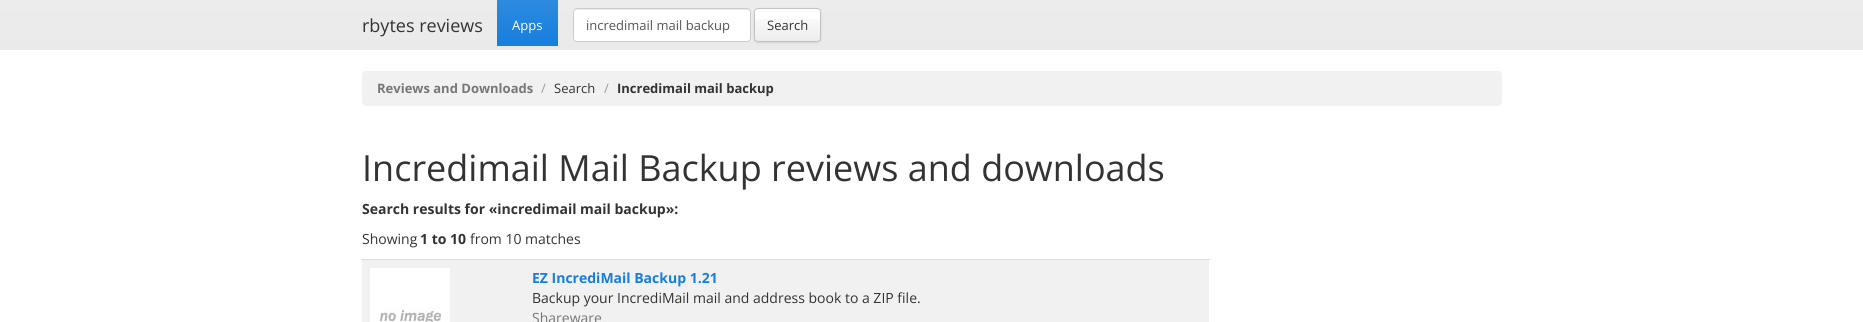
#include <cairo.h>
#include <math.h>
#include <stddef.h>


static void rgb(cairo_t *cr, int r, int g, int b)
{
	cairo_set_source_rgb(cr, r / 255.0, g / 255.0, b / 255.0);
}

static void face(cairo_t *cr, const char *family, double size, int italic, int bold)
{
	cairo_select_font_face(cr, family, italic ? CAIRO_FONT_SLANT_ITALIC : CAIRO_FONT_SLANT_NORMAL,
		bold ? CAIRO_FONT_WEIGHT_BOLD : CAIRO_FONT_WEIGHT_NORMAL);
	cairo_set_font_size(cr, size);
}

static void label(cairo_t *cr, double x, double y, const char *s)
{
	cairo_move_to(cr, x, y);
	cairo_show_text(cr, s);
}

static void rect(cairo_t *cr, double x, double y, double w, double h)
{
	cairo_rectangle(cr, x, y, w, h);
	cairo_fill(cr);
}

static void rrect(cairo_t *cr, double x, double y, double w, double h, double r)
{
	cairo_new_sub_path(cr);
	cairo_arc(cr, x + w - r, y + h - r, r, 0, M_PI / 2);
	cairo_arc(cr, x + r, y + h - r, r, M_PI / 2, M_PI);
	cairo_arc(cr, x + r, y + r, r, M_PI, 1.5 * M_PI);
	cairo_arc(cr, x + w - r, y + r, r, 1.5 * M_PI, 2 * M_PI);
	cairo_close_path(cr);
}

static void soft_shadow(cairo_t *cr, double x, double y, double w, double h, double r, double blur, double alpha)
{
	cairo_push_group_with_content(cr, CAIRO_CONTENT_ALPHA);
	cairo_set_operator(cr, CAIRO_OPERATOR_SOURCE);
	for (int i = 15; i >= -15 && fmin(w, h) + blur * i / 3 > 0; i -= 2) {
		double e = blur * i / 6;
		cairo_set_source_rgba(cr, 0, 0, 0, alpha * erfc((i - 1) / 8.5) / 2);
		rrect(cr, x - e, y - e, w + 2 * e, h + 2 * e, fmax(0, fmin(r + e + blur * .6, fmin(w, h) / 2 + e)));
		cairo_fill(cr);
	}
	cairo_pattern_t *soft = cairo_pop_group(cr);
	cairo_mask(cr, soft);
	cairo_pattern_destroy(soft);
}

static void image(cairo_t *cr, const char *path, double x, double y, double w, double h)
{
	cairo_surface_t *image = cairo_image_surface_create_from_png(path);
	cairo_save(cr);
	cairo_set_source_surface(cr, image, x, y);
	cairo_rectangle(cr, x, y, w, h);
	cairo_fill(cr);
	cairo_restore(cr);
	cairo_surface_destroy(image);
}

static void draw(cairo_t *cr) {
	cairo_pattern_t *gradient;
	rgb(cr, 255, 255, 255);
	cairo_paint(cr);
	gradient = cairo_pattern_create_linear(932, 0, 932, 50);
	cairo_pattern_add_color_stop_rgba(gradient, 0, 0.925, 0.925, 0.925, 1);
	cairo_pattern_add_color_stop_rgba(gradient, 1, 0.918, 0.918, 0.918, 1);
	cairo_set_source(cr, gradient);
	cairo_pattern_destroy(gradient);
	rect(cr, 0, 0, 1863, 50);
	face(cr, "Open Sans", 18, 0, 0);
	rgb(cr, 51, 51, 51);
	label(cr, 362, 32, "rbytes reviews");
	gradient = cairo_pattern_create_linear(528, 0, 528, 46);
	cairo_pattern_add_color_stop_rgba(gradient, 0, 0.176, 0.545, 0.878, 1);
	cairo_pattern_add_color_stop_rgba(gradient, 1, 0.086, 0.494, 0.867, 1);
	cairo_set_source(cr, gradient);
	cairo_pattern_destroy(gradient);
	rect(cr, 497, 0, 61, 46);
	face(cr, "Open Sans", 13, 0, 0);
	rgb(cr, 255, 255, 255);
	label(cr, 512, 30, "Apps");
	rrect(cr, 573, 8, 178, 34, 4);
	cairo_fill(cr);
	rgb(cr, 236, 236, 236);
	cairo_new_path(cr);
	cairo_move_to(cr, 577, 10);
	cairo_line_to(cr, 747, 10);
	cairo_curve_to(cr, 749, 10, 750, 11, 750, 13);
	cairo_line_to(cr, 750, 12);
	cairo_curve_to(cr, 750, 10, 749, 9, 747, 9);
	cairo_line_to(cr, 577, 9);
	cairo_curve_to(cr, 575, 9, 574, 10, 574, 12);
	cairo_line_to(cr, 574, 13);
	cairo_curve_to(cr, 574, 11, 575, 10, 577, 10);
	cairo_close_path(cr);
	cairo_fill(cr);
	rrect(cr, 573.5, 8.5, 177, 33, 3.5);
	rgb(cr, 204, 204, 204);
	cairo_set_line_width(cr, 1);
	cairo_stroke(cr);
	rgb(cr, 85, 85, 85);
	label(cr, 586, 30, "incredimail mail backup");
	rgb(cr, 0, 0, 0);
	soft_shadow(cr, 754, 9, 67, 34, 4, 1, 0.1);
	rgb(cr, 255, 255, 255);
	rrect(cr, 754, 8, 67, 34, 4);
	cairo_fill(cr);
	gradient = cairo_pattern_create_linear(788, 9, 788, 41);
	cairo_pattern_add_color_stop_rgba(gradient, 0, 0, 0, 0, 0);
	cairo_pattern_add_color_stop_rgba(gradient, 1, 0, 0, 0, 0.07);
	cairo_set_source(cr, gradient);
	cairo_pattern_destroy(gradient);
	rect(cr, 754, 19, 67, 22);
	rrect(cr, 754.5, 8.5, 66, 33, 3.5);
	rgb(cr, 194, 194, 194);
	cairo_stroke(cr);
	rgb(cr, 51, 51, 51);
	label(cr, 767, 30, "Search");
	rgb(cr, 241, 241, 241);
	rrect(cr, 362, 71, 1140, 35, 4);
	cairo_fill(cr);
	face(cr, "Open Sans", 13, 0, 1);
	rgb(cr, 119, 119, 119);
	label(cr, 377, 93, "Reviews and Downloads");
	face(cr, "Open Sans", 13, 0, 0);
	rgb(cr, 153, 153, 153);
	label(cr, 541, 93, "/");
	rgb(cr, 51, 51, 51);
	label(cr, 554, 93, "Search");
	rgb(cr, 153, 153, 153);
	label(cr, 604, 93, "/");
	face(cr, "Open Sans", 13, 0, 1);
	rgb(cr, 51, 51, 51);
	label(cr, 617, 93, "Incredimail mail backup");
	face(cr, "Open Sans", 36, 0, 0);
	label(cr, 362, 181, "Incredimail Mail Backup reviews and downloads");
	face(cr, "Open Sans", 14, 0, 1);
	label(cr, 362, 214, "Search results for «incredimail mail backup»:");
	face(cr, "Open Sans", 14, 0, 0);
	label(cr, 362, 244, "Showing");
	face(cr, "Open Sans", 14, 0, 1);
	label(cr, 420, 244, "1 to 10");
	face(cr, "Open Sans", 14, 0, 0);
	label(cr, 470, 244, "from 10 matches");
	rgb(cr, 241, 241, 241);
	rect(cr, 362, 260, 847, 62);
	image(cr, "image0.png", 370, 268, 80, 54);
	rgb(cr, 221, 221, 221);
	rect(cr, 361, 259, 849, 1);
	face(cr, "Open Sans", 14, 0, 1);
	rgb(cr, 22, 126, 221);
	label(cr, 532, 283, "EZ IncrediMail Backup 1.21");
	face(cr, "Open Sans", 14, 0, 0);
	rgb(cr, 51, 51, 51);
	label(cr, 532, 303, "Backup your IncrediMail mail and address book to a ZIP file.");
	rgb(cr, 119, 119, 119);
	label(cr, 532, 323, "Shareware");
}

int main(void) {
	cairo_surface_t *surface = cairo_image_surface_create(CAIRO_FORMAT_RGB24, 1863, 322);
	cairo_t *cr = cairo_create(surface);
	cairo_font_options_t *options = cairo_font_options_create();
	cairo_font_options_set_hint_metrics(options, CAIRO_HINT_METRICS_OFF);
	cairo_font_options_set_hint_style(options, CAIRO_HINT_STYLE_NONE);
	cairo_set_font_options(cr, options);
	cairo_set_miter_limit(cr, 4);
	draw(cr);
	cairo_surface_write_to_png(surface, "render.png");
	cairo_font_options_destroy(options);
	cairo_destroy(cr);
	cairo_surface_destroy(surface);
	return 0;
}
